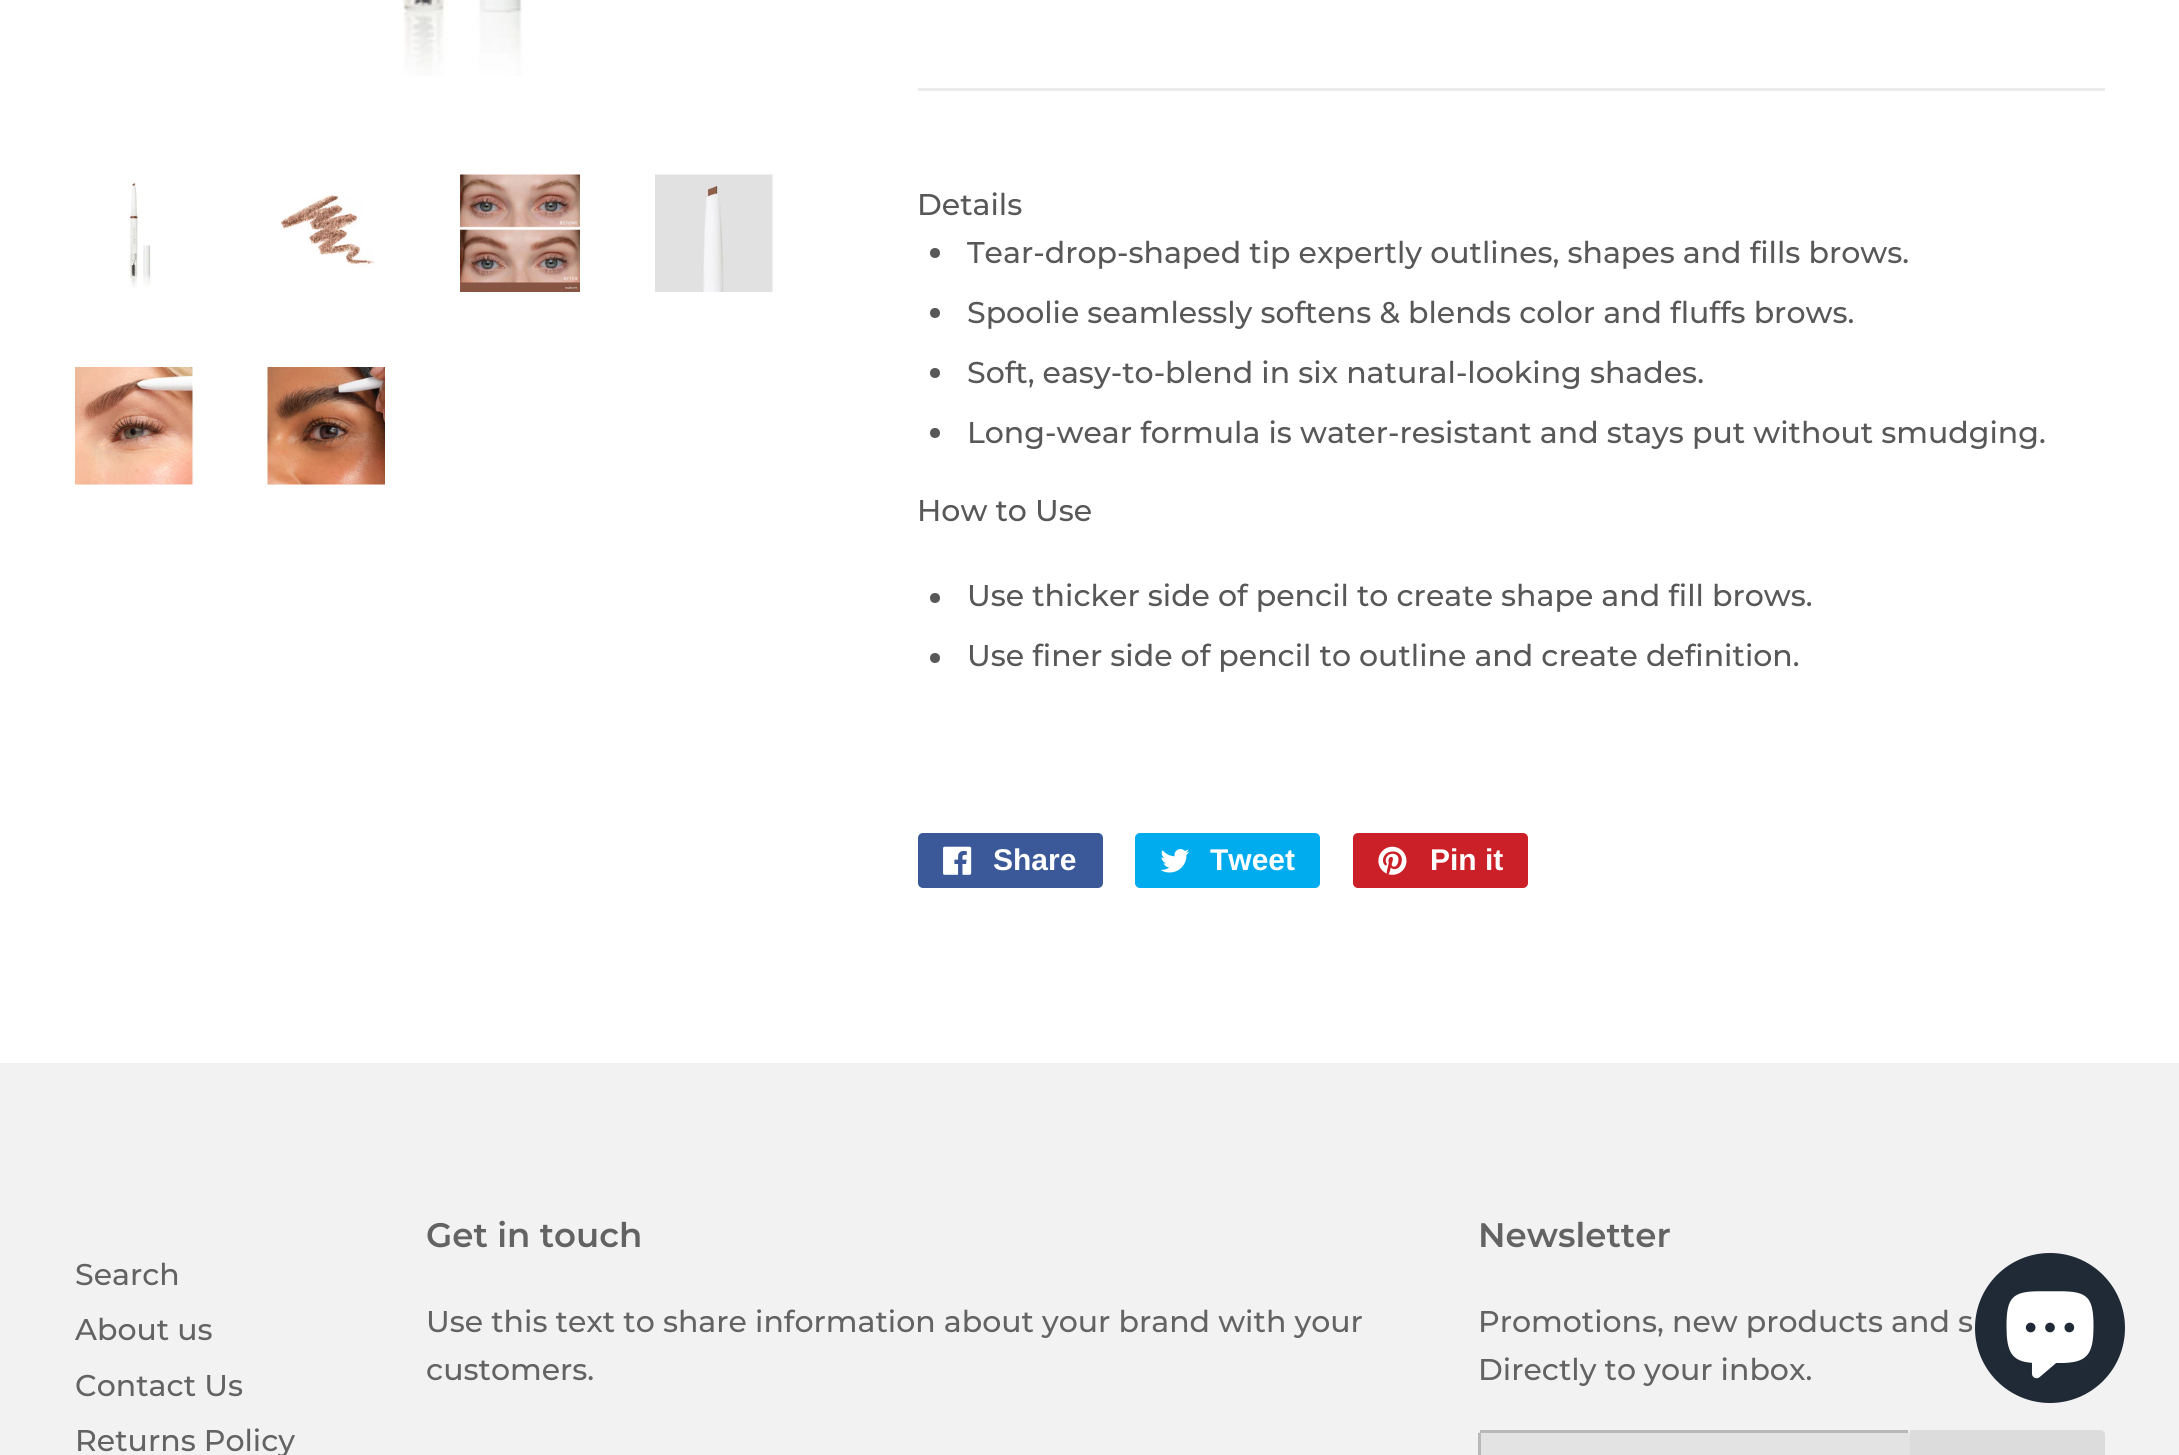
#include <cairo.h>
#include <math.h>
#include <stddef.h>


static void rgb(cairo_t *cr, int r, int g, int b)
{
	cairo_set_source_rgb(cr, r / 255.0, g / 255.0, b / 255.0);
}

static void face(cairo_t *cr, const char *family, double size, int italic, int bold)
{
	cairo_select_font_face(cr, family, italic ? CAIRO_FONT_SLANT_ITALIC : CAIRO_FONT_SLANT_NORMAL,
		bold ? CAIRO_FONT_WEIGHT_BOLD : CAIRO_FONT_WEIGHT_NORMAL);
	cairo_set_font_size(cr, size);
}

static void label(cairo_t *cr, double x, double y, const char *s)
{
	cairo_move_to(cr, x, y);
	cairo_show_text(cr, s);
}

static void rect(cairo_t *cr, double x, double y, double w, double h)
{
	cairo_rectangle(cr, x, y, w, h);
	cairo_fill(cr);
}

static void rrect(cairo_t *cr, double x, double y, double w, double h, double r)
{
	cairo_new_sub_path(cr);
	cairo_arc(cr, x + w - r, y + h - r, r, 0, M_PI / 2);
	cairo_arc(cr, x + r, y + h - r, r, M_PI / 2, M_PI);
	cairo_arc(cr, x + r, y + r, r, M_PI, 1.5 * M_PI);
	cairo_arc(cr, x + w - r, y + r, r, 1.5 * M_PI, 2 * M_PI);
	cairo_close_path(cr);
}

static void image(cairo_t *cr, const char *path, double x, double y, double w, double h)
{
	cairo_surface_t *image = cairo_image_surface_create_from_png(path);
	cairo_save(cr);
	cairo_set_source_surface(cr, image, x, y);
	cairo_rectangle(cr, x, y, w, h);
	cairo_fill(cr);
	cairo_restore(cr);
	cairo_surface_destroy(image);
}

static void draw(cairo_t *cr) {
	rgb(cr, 255, 255, 255);
	cairo_paint(cr);
	image(cr, "image0.png", 402, 0, 121, 76);
	image(cr, "image1.png", 128, 183, 23, 105);
	image(cr, "image2.png", 280, 195, 94, 73);
	image(cr, "image3.png", 460, 174, 120, 118);
	image(cr, "image4.png", 655, 174, 118, 118);
	image(cr, "image5.png", 75, 367, 118, 118);
	image(cr, "image6.png", 267, 367, 118, 118);
	rgb(cr, 236, 236, 236);
	rect(cr, 918, 88, 1187, 3);
	face(cr, "Montserrat Medium", 30, 0, 0);
	rgb(cr, 88, 88, 88);
	label(cr, 917, 215, "Details");
	cairo_new_path(cr);
	cairo_arc(cr, 935, 253, 5, 0, 2 * M_PI);
	cairo_fill(cr);
	label(cr, 967, 263, "Tear-drop-shaped tip expertly outlines, shapes and fills brows.");
	cairo_new_path(cr);
	cairo_arc(cr, 935, 313, 5, 0, 2 * M_PI);
	cairo_fill(cr);
	label(cr, 967, 323, "Spoolie seamlessly softens & blends color and fluffs brows.");
	cairo_new_path(cr);
	cairo_arc(cr, 935, 373, 5, 0, 2 * M_PI);
	cairo_fill(cr);
	label(cr, 967, 383, "Soft, easy-to-blend in six natural-looking shades.");
	cairo_new_path(cr);
	cairo_arc(cr, 935, 433, 5, 0, 2 * M_PI);
	cairo_fill(cr);
	label(cr, 967, 443, "Long-wear formula is water-resistant and stays put without smudging.");
	label(cr, 917, 521, "How to Use");
	cairo_new_path(cr);
	cairo_arc(cr, 935, 598, 5, 0, 2 * M_PI);
	cairo_fill(cr);
	label(cr, 967, 606, "Use thicker side of pencil to create shape and fill brows.");
	cairo_new_path(cr);
	cairo_arc(cr, 935, 658, 5, 0, 2 * M_PI);
	cairo_fill(cr);
	label(cr, 967, 666, "Use finer side of pencil to outline and create definition.");
	rgb(cr, 59, 89, 152);
	rrect(cr, 918, 833, 185, 55, 5);
	cairo_fill(cr);
	image(cr, "image7.png", 943, 846, 29, 29);
	face(cr, "Liberation Sans", 30, 0, 1);
	rgb(cr, 255, 255, 255);
	label(cr, 993, 870, "Share");
	rgb(cr, 0, 172, 237);
	rrect(cr, 1135, 833, 185, 55, 5);
	cairo_fill(cr);
	image(cr, "image8.png", 1160, 849, 30, 24);
	rgb(cr, 255, 255, 255);
	label(cr, 1210, 870, "Tweet");
	rgb(cr, 203, 32, 39);
	rrect(cr, 1353, 833, 175, 55, 5);
	cairo_fill(cr);
	image(cr, "image9.png", 1378, 846, 29, 29);
	rgb(cr, 255, 255, 255);
	label(cr, 1430, 870, "Pin it");
	rgb(cr, 242, 242, 242);
	rect(cr, 0, 1063, 2179, 392);
	face(cr, "Montserrat Medium", 30, 0, 0);
	rgb(cr, 99, 99, 99);
	label(cr, 75, 1285, "Search");
	label(cr, 75, 1340, "About us");
	label(cr, 75, 1396, "Contact Us");
	label(cr, 75, 1451, "Returns Policy");
	face(cr, "Montserrat SemiBold", 34, 0, 0);
	label(cr, 426, 1247, "Get in touch");
	face(cr, "Montserrat Medium", 30, 0, 0);
	label(cr, 426, 1332, "Use this text to share information about your brand with your");
	label(cr, 426, 1380, "customers.");
	face(cr, "Montserrat SemiBold", 34, 0, 0);
	label(cr, 1478, 1247, "Newsletter");
	face(cr, "Montserrat Medium", 30, 0, 0);
	label(cr, 1478, 1332, "Promotions, new products and s");
	label(cr, 1478, 1380, "Directly to your inbox.");
	rgb(cr, 227, 227, 227);
	rrect(cr, 1478, 1430, 432, 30, 5);
	cairo_fill(cr);
	rgb(cr, 185, 185, 185);
	rect(cr, 1480, 1430, 428, 3);
	rect(cr, 1478, 1433, 3, 22);
	rgb(cr, 220, 220, 220);
	cairo_new_path(cr);
	cairo_move_to(cr, 1910, 1430);
	cairo_line_to(cr, 2100, 1430);
	cairo_curve_to(cr, 2103, 1430, 2105, 1432, 2105, 1435);
	cairo_line_to(cr, 2105, 1455);
	cairo_curve_to(cr, 2105, 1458, 2103, 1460, 2100, 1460);
	cairo_line_to(cr, 1910, 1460);
	cairo_close_path(cr);
	cairo_fill(cr);
	rgb(cr, 32, 42, 54);
	cairo_arc(cr, 2050, 1328, 75, 0, 2 * M_PI);
	cairo_fill(cr);
	image(cr, "image10.png", 2006, 1291, 88, 88);
}

int main(void) {
	cairo_surface_t *surface = cairo_image_surface_create(CAIRO_FORMAT_RGB24, 2179, 1455);
	cairo_t *cr = cairo_create(surface);
	cairo_font_options_t *options = cairo_font_options_create();
	cairo_font_options_set_hint_metrics(options, CAIRO_HINT_METRICS_OFF);
	cairo_font_options_set_hint_style(options, CAIRO_HINT_STYLE_NONE);
	cairo_set_font_options(cr, options);
	cairo_set_miter_limit(cr, 4);
	draw(cr);
	cairo_surface_write_to_png(surface, "render.png");
	cairo_font_options_destroy(options);
	cairo_destroy(cr);
	cairo_surface_destroy(surface);
	return 0;
}
